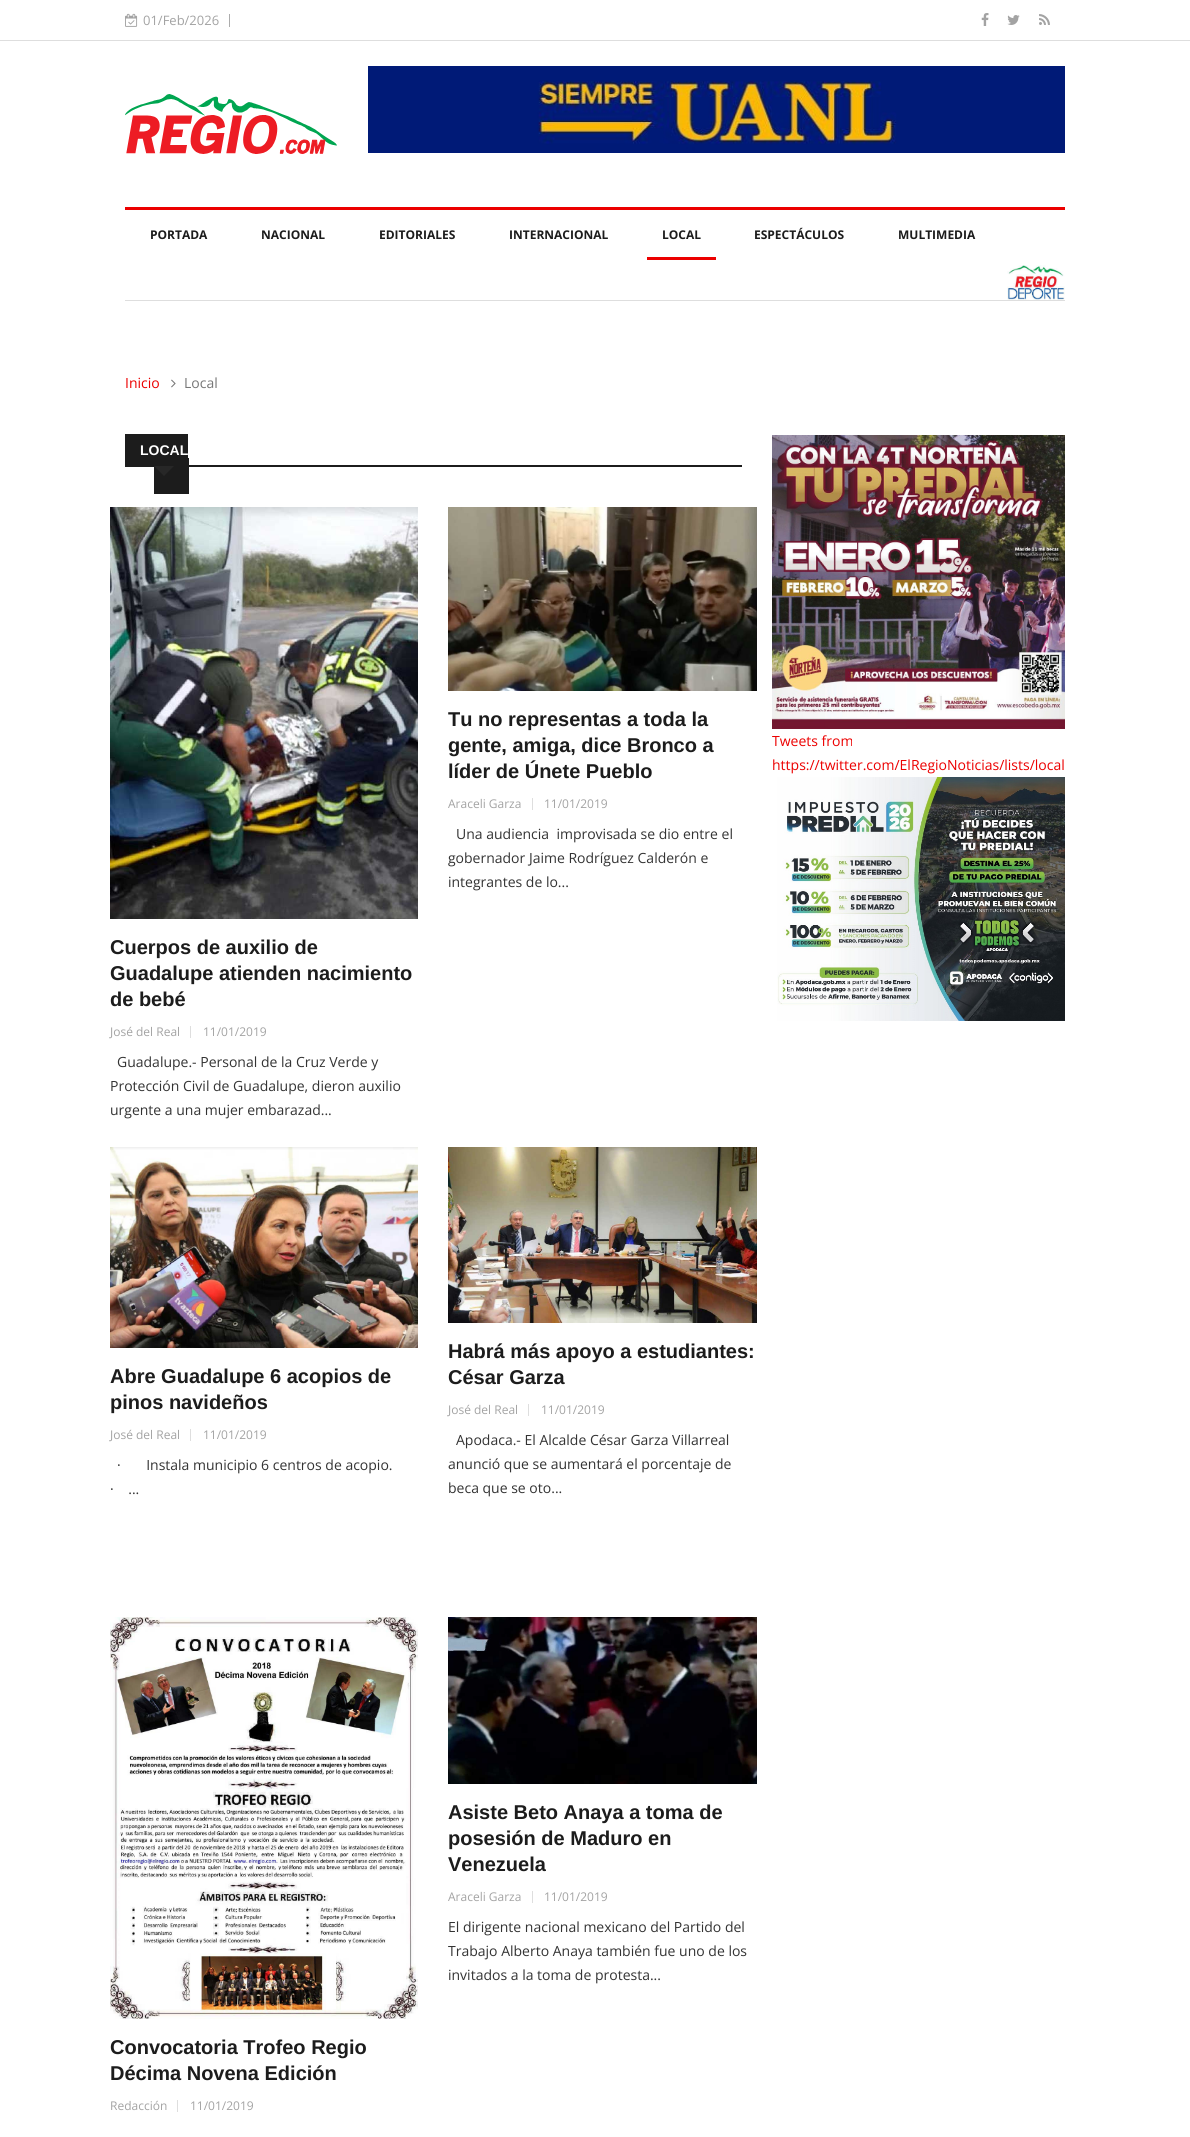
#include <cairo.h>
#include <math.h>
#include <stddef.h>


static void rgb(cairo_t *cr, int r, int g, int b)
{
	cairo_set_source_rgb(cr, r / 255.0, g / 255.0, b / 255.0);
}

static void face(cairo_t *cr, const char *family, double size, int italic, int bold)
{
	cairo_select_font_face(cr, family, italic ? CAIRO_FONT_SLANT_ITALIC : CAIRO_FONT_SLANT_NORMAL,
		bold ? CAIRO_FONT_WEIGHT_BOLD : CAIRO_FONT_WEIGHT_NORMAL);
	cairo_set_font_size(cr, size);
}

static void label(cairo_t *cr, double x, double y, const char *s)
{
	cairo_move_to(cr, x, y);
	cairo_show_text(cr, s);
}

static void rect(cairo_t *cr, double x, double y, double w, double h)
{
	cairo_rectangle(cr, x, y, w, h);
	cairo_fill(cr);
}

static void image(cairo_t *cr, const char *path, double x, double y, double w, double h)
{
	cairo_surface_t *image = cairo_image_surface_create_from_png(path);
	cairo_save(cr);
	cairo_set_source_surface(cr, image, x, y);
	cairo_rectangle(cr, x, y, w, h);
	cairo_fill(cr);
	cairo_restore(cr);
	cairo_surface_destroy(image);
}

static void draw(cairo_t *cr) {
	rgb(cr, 255, 255, 255);
	cairo_paint(cr);
	rgb(cr, 222, 222, 222);
	rect(cr, 0, 40, 1190, 1);
	rgb(cr, 172, 172, 172);
	rect(cr, 229, 14, 1, 13);
	image(cr, "image0.png", 125, 13, 13, 14);
	face(cr, "Open Sans", 13, 0, 0);
	rgb(cr, 163, 163, 163);
	label(cr, 143, 25, "01/Feb/2026");
	image(cr, "image1.png", 981, 13, 8, 13);
	image(cr, "image2.png", 1007, 15, 13, 10);
	image(cr, "image3.png", 1039, 14, 11, 11);
	image(cr, "image4.png", 125, 94, 212, 60);
	image(cr, "image5.png", 368, 66, 697, 87);
	rgb(cr, 236, 0, 0);
	rect(cr, 125, 207, 940, 3);
	rgb(cr, 222, 222, 222);
	rect(cr, 125, 300, 940, 1);
	face(cr, "Open Sans", 12, 0, 1);
	rgb(cr, 28, 28, 28);
	label(cr, 150, 239, "PORTADA");
	label(cr, 261, 239, "NACIONAL");
	label(cr, 379, 239, "EDITORIALES");
	label(cr, 509, 239, "INTERNACIONAL");
	label(cr, 662, 239, "LOCAL");
	rgb(cr, 236, 0, 0);
	rect(cr, 647, 257, 69, 3);
	rgb(cr, 28, 28, 28);
	label(cr, 754, 239, "ESPECTÁCULOS");
	label(cr, 898, 239, "MULTIMEDIA");
	image(cr, "image6.png", 1007, 265, 58, 35);
	face(cr, "Open Sans", 14, 0, 0);
	rgb(cr, 236, 0, 0);
	label(cr, 125, 388, "Inicio");
	image(cr, "image7.png", 171, 379, 5, 9);
	rgb(cr, 119, 119, 119);
	label(cr, 184, 388, "Local");
	rgb(cr, 28, 28, 28);
	rect(cr, 125, 465, 617, 2);
	rect(cr, 125, 434, 63, 31);
	rect(cr, 154, 458, 35, 36);
	face(cr, "Arimo", 14, 0, 1);
	rgb(cr, 255, 255, 255);
	label(cr, 140, 455, "LOCAL");
	rgb(cr, 39, 39, 39);
	cairo_new_path(cr);
	cairo_move_to(cr, 154, 466);
	cairo_line_to(cr, 174, 466);
	cairo_line_to(cr, 164, 476);
	cairo_close_path(cr);
	cairo_fill(cr);
	image(cr, "image8.png", 448, 507, 309, 184);
	face(cr, "Arimo", 20, 0, 1);
	rgb(cr, 28, 28, 28);
	label(cr, 448, 726, "Tu no representas a toda la");
	label(cr, 448, 752, "gente, amiga, dice Bronco a");
	label(cr, 448, 778, "líder de Únete Pueblo");
	rgb(cr, 222, 222, 222);
	rect(cr, 532, 798, 1, 12);
	face(cr, "Open Sans", 12, 0, 0);
	rgb(cr, 163, 163, 163);
	label(cr, 448, 808, "Araceli Garza");
	label(cr, 544, 808, "11/01/2019");
	face(cr, "Open Sans", 14, 0, 0);
	rgb(cr, 51, 51, 51);
	label(cr, 456, 839, "Una audiencia  improvisada se dio entre el");
	label(cr, 448, 863, "gobernador Jaime Rodríguez Calderón e");
	label(cr, 448, 887, "integrantes de lo...");
	image(cr, "image9.png", 110, 507, 308, 412);
	face(cr, "Arimo", 20, 0, 1);
	rgb(cr, 28, 28, 28);
	label(cr, 110, 954, "Cuerpos de auxilio de");
	label(cr, 110, 980, "Guadalupe atienden nacimiento");
	label(cr, 110, 1006, "de bebé");
	rgb(cr, 222, 222, 222);
	rect(cr, 190, 1026, 1, 12);
	face(cr, "Open Sans", 12, 0, 0);
	rgb(cr, 163, 163, 163);
	label(cr, 110, 1036, "José del Real");
	label(cr, 203, 1036, "11/01/2019");
	face(cr, "Open Sans", 14, 0, 0);
	rgb(cr, 51, 51, 51);
	label(cr, 117, 1067, "Guadalupe.- Personal de la Cruz Verde y");
	label(cr, 110, 1091, "Protección Civil de Guadalupe, dieron auxilio");
	label(cr, 110, 1115, "urgente a una mujer embarazad...");
	image(cr, "image10.png", 110, 1147, 308, 201);
	face(cr, "Arimo", 20, 0, 1);
	rgb(cr, 28, 28, 28);
	label(cr, 110, 1383, "Abre Guadalupe 6 acopios de");
	label(cr, 110, 1409, "pinos navideños");
	rgb(cr, 222, 222, 222);
	rect(cr, 190, 1429, 1, 12);
	face(cr, "Open Sans", 12, 0, 0);
	rgb(cr, 163, 163, 163);
	label(cr, 110, 1439, "José del Real");
	label(cr, 203, 1439, "11/01/2019");
	face(cr, "Open Sans", 14, 0, 0);
	rgb(cr, 51, 51, 51);
	label(cr, 117, 1470, "·       Instala municipio 6 centros de acopio.");
	label(cr, 110, 1494, "·    ...");
	image(cr, "image11.png", 448, 1147, 309, 176);
	face(cr, "Arimo", 20, 0, 1);
	rgb(cr, 28, 28, 28);
	label(cr, 448, 1358, "Habrá más apoyo a estudiantes:");
	label(cr, 448, 1384, "César Garza");
	rgb(cr, 222, 222, 222);
	rect(cr, 528, 1404, 1, 12);
	face(cr, "Open Sans", 12, 0, 0);
	rgb(cr, 163, 163, 163);
	label(cr, 448, 1414, "José del Real");
	label(cr, 541, 1414, "11/01/2019");
	face(cr, "Open Sans", 14, 0, 0);
	rgb(cr, 51, 51, 51);
	label(cr, 456, 1445, "Apodaca.- El Alcalde César Garza Villarreal");
	label(cr, 448, 1469, "anunció que se aumentará el porcentaje de");
	label(cr, 448, 1493, "beca que se oto...");
	image(cr, "image12.png", 448, 1617, 309, 167);
	face(cr, "Arimo", 20, 0, 1);
	rgb(cr, 28, 28, 28);
	label(cr, 448, 1819, "Asiste Beto Anaya a toma de");
	label(cr, 448, 1845, "posesión de Maduro en");
	label(cr, 448, 1871, "Venezuela");
	rgb(cr, 222, 222, 222);
	rect(cr, 532, 1891, 1, 12);
	face(cr, "Open Sans", 12, 0, 0);
	rgb(cr, 163, 163, 163);
	label(cr, 448, 1901, "Araceli Garza");
	label(cr, 544, 1901, "11/01/2019");
	face(cr, "Open Sans", 14, 0, 0);
	rgb(cr, 51, 51, 51);
	label(cr, 448, 1932, "El dirigente nacional mexicano del Partido del");
	label(cr, 448, 1956, "Trabajo Alberto Anaya también fue uno de los");
	label(cr, 448, 1980, "invitados a la toma de protesta...");
	image(cr, "image13.png", 110, 1617, 308, 402);
	face(cr, "Arimo", 20, 0, 1);
	rgb(cr, 28, 28, 28);
	label(cr, 110, 2054, "Convocatoria Trofeo Regio");
	label(cr, 110, 2080, "Décima Novena Edición");
	rgb(cr, 222, 222, 222);
	rect(cr, 177, 2100, 1, 12);
	face(cr, "Open Sans", 12, 0, 0);
	rgb(cr, 163, 163, 163);
	label(cr, 110, 2110, "Redacción");
	label(cr, 190, 2110, "11/01/2019");
	image(cr, "image14.png", 772, 435, 293, 294);
	face(cr, "Open Sans", 14, 0, 0);
	rgb(cr, 236, 0, 0);
	label(cr, 772, 746, "Tweets from");
	label(cr, 772, 770, "https://twitter.com/ElRegioNoticias/lists/local");
	image(cr, "image15.png", 777, 777, 288, 244);
}

int main(void) {
	cairo_surface_t *surface = cairo_image_surface_create(CAIRO_FORMAT_RGB24, 1190, 2137);
	cairo_t *cr = cairo_create(surface);
	cairo_font_options_t *options = cairo_font_options_create();
	cairo_font_options_set_hint_metrics(options, CAIRO_HINT_METRICS_OFF);
	cairo_font_options_set_hint_style(options, CAIRO_HINT_STYLE_NONE);
	cairo_set_font_options(cr, options);
	cairo_set_miter_limit(cr, 4);
	draw(cr);
	cairo_surface_write_to_png(surface, "render.png");
	cairo_font_options_destroy(options);
	cairo_destroy(cr);
	cairo_surface_destroy(surface);
	return 0;
}
